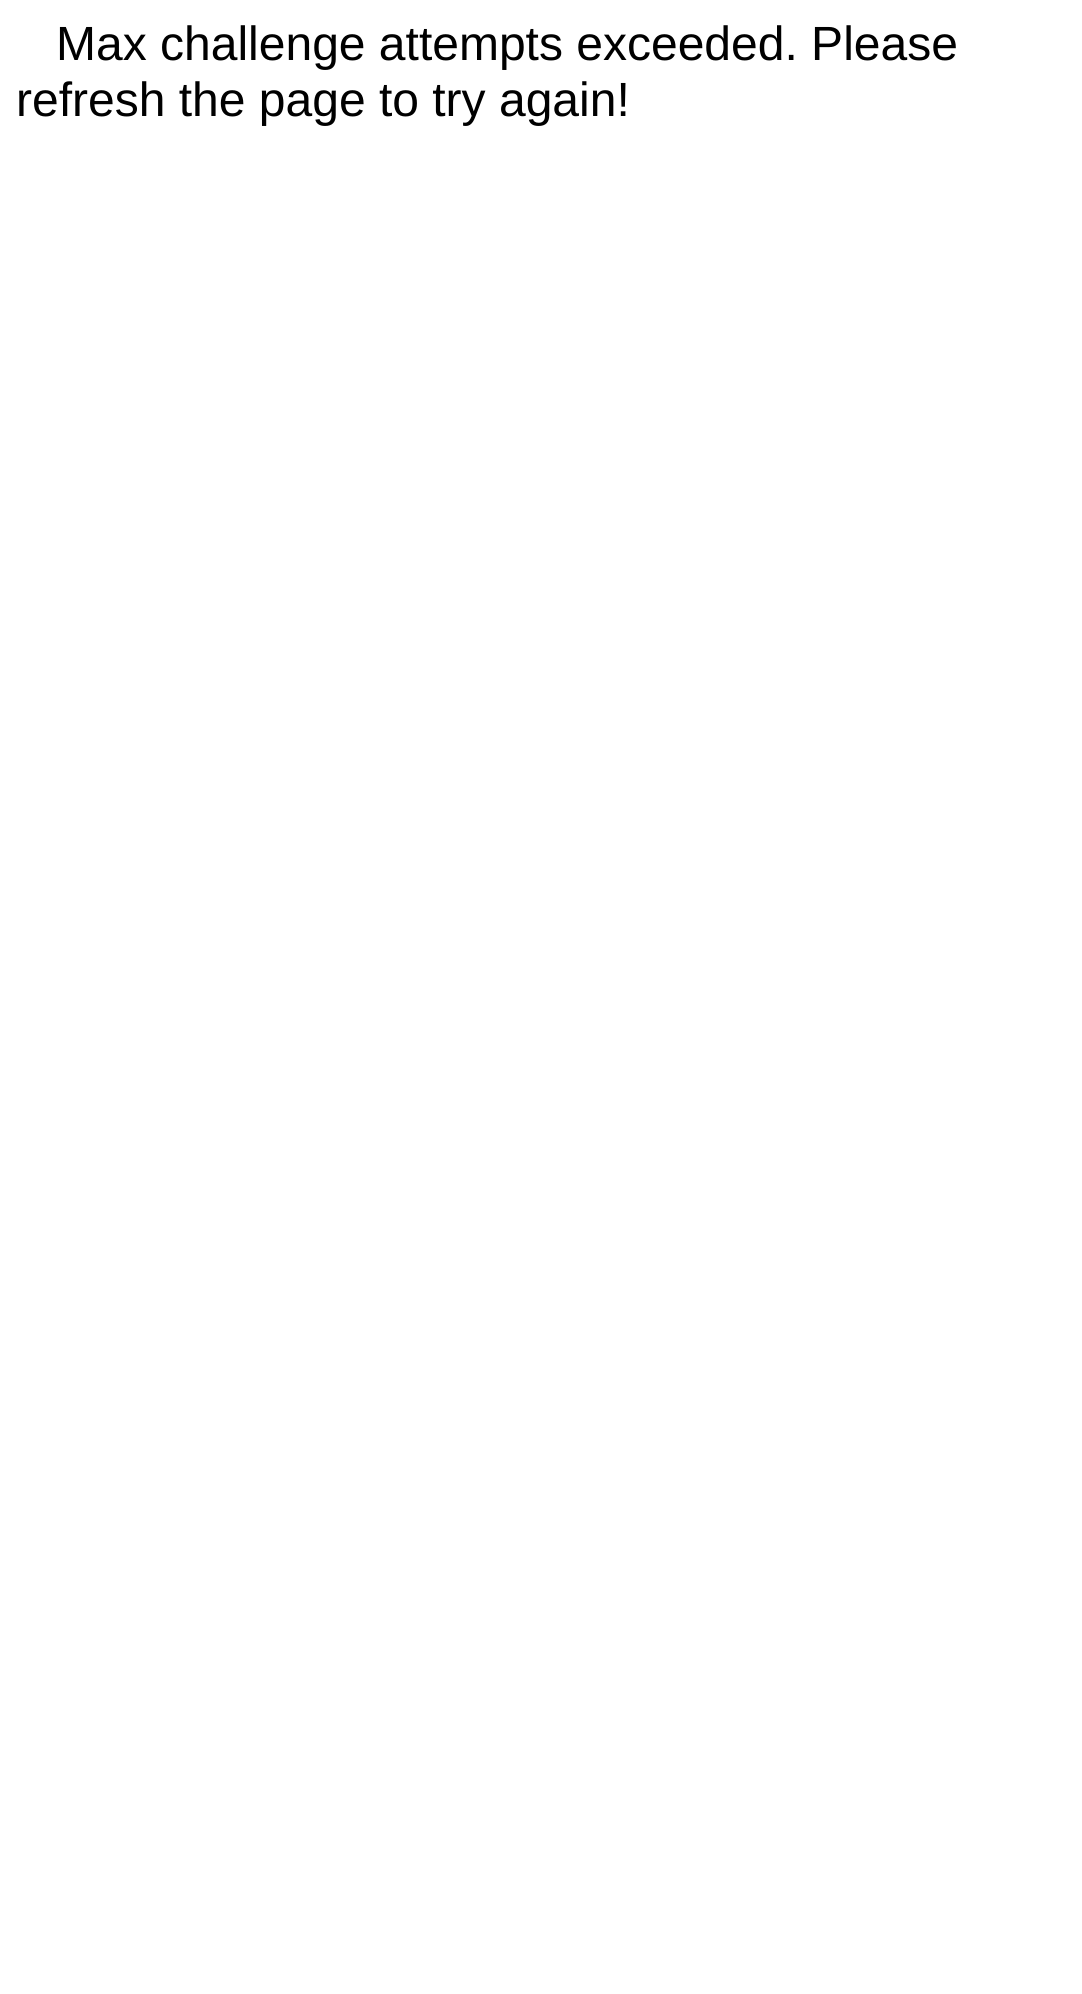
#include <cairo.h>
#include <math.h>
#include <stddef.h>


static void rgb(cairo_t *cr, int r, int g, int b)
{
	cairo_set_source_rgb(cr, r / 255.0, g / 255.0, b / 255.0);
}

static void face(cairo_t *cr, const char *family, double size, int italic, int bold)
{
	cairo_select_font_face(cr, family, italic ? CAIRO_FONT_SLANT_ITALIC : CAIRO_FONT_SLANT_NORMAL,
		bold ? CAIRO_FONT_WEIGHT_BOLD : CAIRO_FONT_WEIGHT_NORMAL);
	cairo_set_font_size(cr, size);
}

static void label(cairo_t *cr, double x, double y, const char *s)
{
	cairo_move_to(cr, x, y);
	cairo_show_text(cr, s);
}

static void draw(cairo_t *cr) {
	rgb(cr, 255, 255, 255);
	cairo_paint(cr);
	face(cr, "Liberation Sans", 48, 0, 0);
	rgb(cr, 0, 0, 0);
	label(cr, 56, 60, "Max challenge attempts exceeded. Please");
	label(cr, 16, 116, "refresh the page to try again!");
}

int main(void) {
	cairo_surface_t *surface = cairo_image_surface_create(CAIRO_FORMAT_RGB24, 1082, 1994);
	cairo_t *cr = cairo_create(surface);
	cairo_font_options_t *options = cairo_font_options_create();
	cairo_font_options_set_hint_metrics(options, CAIRO_HINT_METRICS_OFF);
	cairo_font_options_set_hint_style(options, CAIRO_HINT_STYLE_NONE);
	cairo_set_font_options(cr, options);
	cairo_set_miter_limit(cr, 4);
	draw(cr);
	cairo_surface_write_to_png(surface, "render.png");
	cairo_font_options_destroy(options);
	cairo_destroy(cr);
	cairo_surface_destroy(surface);
	return 0;
}
